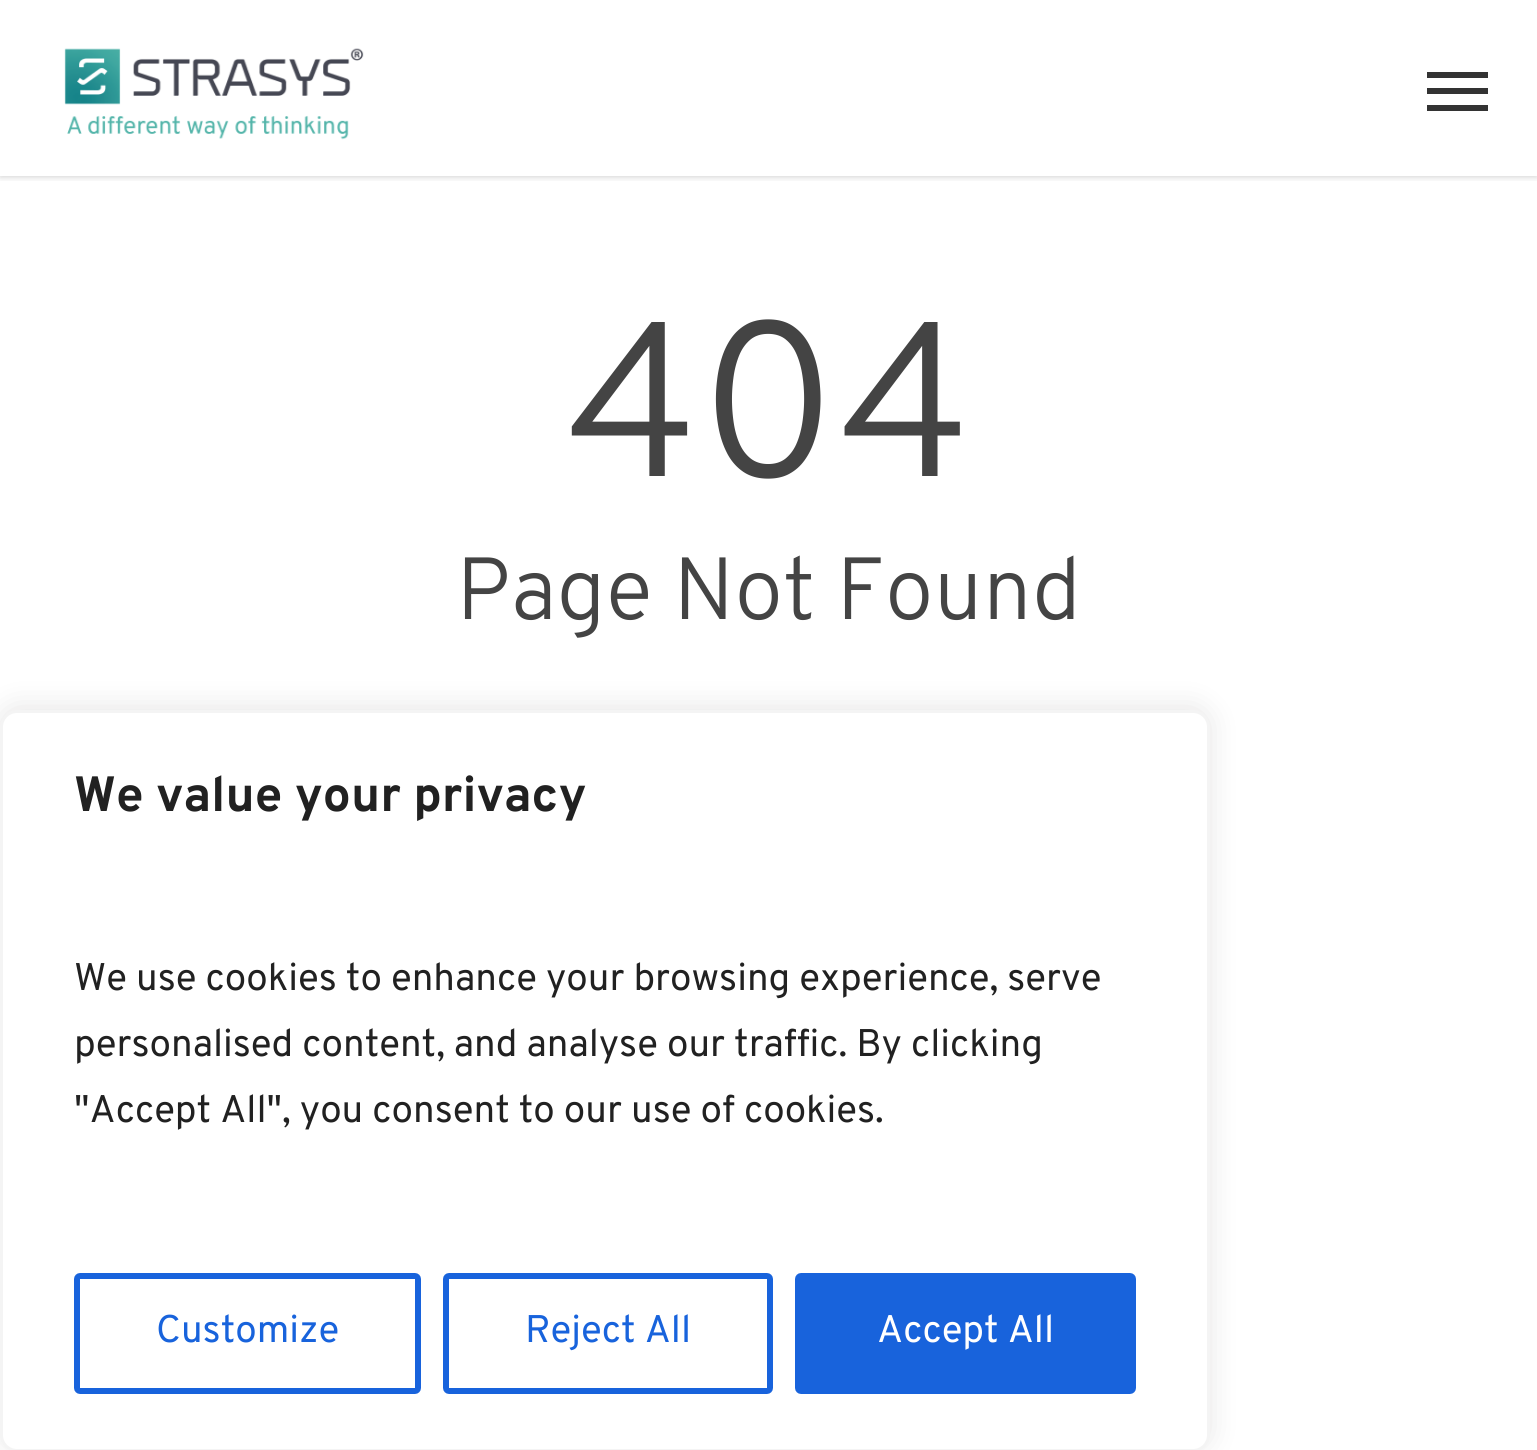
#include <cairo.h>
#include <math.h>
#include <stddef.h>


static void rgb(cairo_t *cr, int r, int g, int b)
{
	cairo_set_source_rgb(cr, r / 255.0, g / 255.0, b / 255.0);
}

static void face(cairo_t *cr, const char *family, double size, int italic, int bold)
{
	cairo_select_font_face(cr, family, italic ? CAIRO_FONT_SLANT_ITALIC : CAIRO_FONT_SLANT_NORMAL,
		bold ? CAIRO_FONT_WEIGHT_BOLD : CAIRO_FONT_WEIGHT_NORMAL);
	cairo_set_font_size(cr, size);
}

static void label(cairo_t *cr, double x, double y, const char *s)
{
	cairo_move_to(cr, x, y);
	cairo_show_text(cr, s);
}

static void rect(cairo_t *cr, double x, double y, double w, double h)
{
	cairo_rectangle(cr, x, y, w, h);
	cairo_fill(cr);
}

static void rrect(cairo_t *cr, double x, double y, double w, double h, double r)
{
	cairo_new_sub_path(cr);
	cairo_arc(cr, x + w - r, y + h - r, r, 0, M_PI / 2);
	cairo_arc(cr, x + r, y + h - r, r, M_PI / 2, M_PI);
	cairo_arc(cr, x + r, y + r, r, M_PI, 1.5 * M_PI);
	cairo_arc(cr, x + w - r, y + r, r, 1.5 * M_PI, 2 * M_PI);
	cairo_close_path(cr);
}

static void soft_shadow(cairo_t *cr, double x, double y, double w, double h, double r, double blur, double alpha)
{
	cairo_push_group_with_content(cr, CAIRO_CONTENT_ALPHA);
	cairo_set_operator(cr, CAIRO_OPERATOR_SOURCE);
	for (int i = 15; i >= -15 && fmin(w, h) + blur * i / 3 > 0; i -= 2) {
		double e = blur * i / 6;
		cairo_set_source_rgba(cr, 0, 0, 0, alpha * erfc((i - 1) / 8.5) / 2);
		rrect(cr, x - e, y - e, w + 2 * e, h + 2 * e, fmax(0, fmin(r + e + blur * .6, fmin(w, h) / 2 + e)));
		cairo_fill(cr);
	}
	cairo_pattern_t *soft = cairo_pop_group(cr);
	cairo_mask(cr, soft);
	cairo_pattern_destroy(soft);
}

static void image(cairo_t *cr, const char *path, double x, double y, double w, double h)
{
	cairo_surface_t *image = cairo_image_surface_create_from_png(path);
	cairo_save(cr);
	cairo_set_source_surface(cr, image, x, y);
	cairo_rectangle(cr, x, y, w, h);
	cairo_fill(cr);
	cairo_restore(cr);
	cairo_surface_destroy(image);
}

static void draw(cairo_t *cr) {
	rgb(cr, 255, 255, 255);
	cairo_paint(cr);
	cairo_save(cr);
	cairo_rectangle(cr, 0, 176, 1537, 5);
	cairo_clip(cr);
	rgb(cr, 0, 0, 0);
	soft_shadow(cr, 0, 0, 1537, 176, 0, 4, 0.22);
	cairo_restore(cr);
	image(cr, "image0.png", 64, 48, 300, 92);
	rgb(cr, 51, 51, 51);
	rect(cr, 1427, 72, 61, 6);
	rect(cr, 1427, 105, 61, 6);
	rect(cr, 1427, 88, 61, 6);
	face(cr, "Overpass Light", 220, 0, 0);
	rgb(cr, 68, 68, 68);
	label(cr, 565, 476, "404");
	face(cr, "Overpass Light", 88, 0, 0);
	label(cr, 456, 619, "Page Not Found");
	rgb(cr, 172, 171, 171);
	soft_shadow(cr, 0, 707, 1210, 742, 17, 14, 0.3);
	rgb(cr, 255, 255, 255);
	rrect(cr, 1.5, 711.5, 1207, 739, 15.5);
	cairo_fill_preserve(cr);
	rgb(cr, 244, 244, 244);
	cairo_set_line_width(cr, 3);
	cairo_stroke(cr);
	face(cr, "Overpass", 49.5, 0, 1);
	rgb(cr, 33, 33, 33);
	label(cr, 74, 811, "We value your privacy");
	face(cr, "Overpass", 38.5, 0, 0);
	label(cr, 74, 990, "We use cookies to enhance your browsing experience, serve");
	label(cr, 74, 1056, "personalised content, and analyse our traffic. By clicking");
	label(cr, 74, 1122, "\"Accept All\", you consent to our use of cookies.");
	rrect(cr, 77, 1276, 341, 115, 3);
	rgb(cr, 24, 99, 220);
	cairo_set_line_width(cr, 6);
	cairo_stroke(cr);
	label(cr, 156, 1342, "Customize");
	rrect(cr, 446, 1276, 324, 115, 3);
	cairo_stroke(cr);
	label(cr, 525, 1342, "Reject All");
	rrect(cr, 798, 1276, 335, 115, 3);
	cairo_fill_preserve(cr);
	cairo_stroke(cr);
	rgb(cr, 255, 255, 255);
	label(cr, 877, 1342, "Accept All");
}

int main(void) {
	cairo_surface_t *surface = cairo_image_surface_create(CAIRO_FORMAT_RGB24, 1537, 1450);
	cairo_t *cr = cairo_create(surface);
	cairo_font_options_t *options = cairo_font_options_create();
	cairo_font_options_set_hint_metrics(options, CAIRO_HINT_METRICS_OFF);
	cairo_font_options_set_hint_style(options, CAIRO_HINT_STYLE_NONE);
	cairo_set_font_options(cr, options);
	cairo_set_miter_limit(cr, 4);
	draw(cr);
	cairo_surface_write_to_png(surface, "render.png");
	cairo_font_options_destroy(options);
	cairo_destroy(cr);
	cairo_surface_destroy(surface);
	return 0;
}
